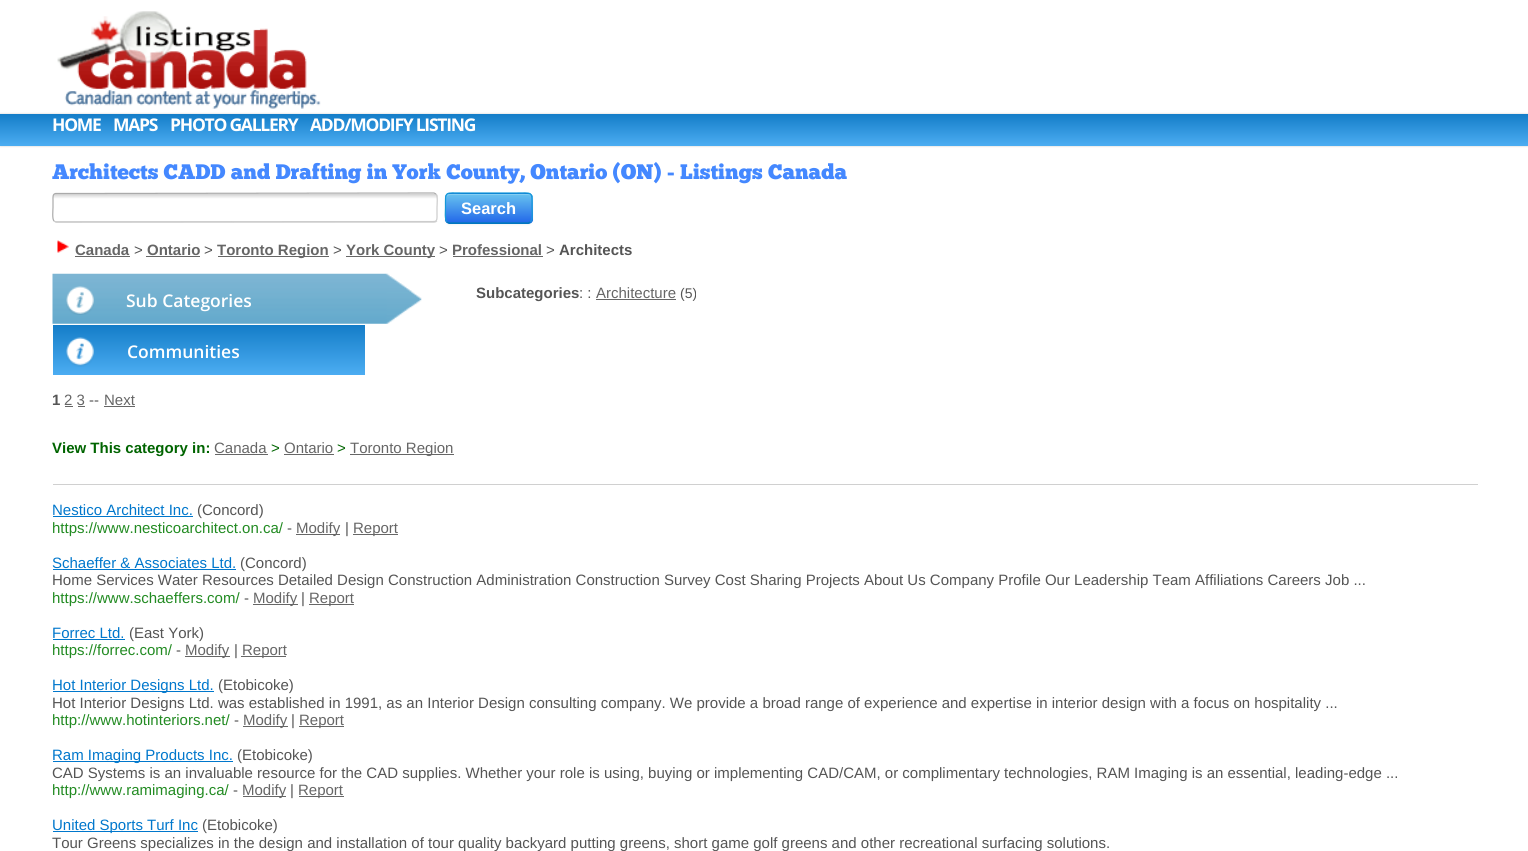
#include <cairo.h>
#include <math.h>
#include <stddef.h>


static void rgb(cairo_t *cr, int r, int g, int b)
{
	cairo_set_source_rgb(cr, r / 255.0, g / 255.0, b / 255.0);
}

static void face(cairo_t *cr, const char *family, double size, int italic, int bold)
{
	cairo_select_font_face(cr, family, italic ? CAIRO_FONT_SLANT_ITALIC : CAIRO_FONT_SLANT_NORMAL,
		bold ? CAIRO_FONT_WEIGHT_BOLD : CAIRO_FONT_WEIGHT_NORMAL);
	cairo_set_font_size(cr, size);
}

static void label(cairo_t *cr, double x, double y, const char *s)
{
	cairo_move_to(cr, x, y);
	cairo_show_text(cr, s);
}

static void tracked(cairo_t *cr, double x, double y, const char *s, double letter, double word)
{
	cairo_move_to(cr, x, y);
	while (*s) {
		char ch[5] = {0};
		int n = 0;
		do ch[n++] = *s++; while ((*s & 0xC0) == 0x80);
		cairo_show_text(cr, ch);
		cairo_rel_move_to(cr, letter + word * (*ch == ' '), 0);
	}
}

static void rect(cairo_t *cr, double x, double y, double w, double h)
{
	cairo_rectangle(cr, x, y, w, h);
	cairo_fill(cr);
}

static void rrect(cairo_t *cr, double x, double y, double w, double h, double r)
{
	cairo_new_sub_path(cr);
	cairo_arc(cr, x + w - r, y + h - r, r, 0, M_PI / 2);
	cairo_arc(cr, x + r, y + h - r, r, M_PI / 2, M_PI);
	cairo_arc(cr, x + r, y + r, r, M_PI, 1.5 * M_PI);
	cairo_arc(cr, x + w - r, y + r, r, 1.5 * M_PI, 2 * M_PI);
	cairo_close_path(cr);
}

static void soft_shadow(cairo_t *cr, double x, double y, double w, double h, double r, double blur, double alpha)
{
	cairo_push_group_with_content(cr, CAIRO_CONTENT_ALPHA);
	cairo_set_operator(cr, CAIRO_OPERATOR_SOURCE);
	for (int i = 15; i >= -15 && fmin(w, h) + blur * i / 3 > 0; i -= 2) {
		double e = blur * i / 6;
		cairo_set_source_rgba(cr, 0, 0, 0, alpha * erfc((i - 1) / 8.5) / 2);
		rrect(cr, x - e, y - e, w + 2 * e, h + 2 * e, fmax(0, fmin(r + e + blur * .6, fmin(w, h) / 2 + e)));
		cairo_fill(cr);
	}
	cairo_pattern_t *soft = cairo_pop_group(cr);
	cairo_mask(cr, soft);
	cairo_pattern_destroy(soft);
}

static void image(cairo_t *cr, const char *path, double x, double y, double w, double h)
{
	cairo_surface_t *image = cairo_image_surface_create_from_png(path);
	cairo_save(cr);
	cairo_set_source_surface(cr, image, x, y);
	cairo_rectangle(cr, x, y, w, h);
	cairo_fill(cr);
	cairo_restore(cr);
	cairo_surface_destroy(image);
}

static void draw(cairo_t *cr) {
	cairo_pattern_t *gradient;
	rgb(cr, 255, 255, 255);
	cairo_paint(cr);
	image(cr, "image0.png", 57, 11, 264, 98);
	rgb(cr, 0, 0, 0);
	soft_shadow(cr, 0, 114, 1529, 32, 0, 1, 0.2);
	gradient = cairo_pattern_create_linear(764, 114, 764, 146);
	cairo_pattern_add_color_stop_rgba(gradient, 0, 0.078, 0.49, 0.784, 1);
	cairo_pattern_add_color_stop_rgba(gradient, 1, 0.298, 0.678, 0.949, 1);
	cairo_set_source(cr, gradient);
	cairo_pattern_destroy(gradient);
	rect(cr, 0, 114, 1528, 32);
	face(cr, "Open Sans", 17.5, 0, 1);
	rgb(cr, 255, 255, 255);
	tracked(cr, 52, 131, "HOME", -1.25, 0);
	tracked(cr, 113, 131, "MAPS", -1.25, 0);
	tracked(cr, 170, 131, "PHOTO GALLERY", -1.25, 0);
	tracked(cr, 310, 131, "ADD/MODIFY LISTING", -1.25, 0);
	face(cr, "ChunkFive", 21, 0, 0);
	rgb(cr, 68, 136, 255);
	label(cr, 52, 179, "Architects CADD and Drafting in York County, Ontario (ON) - Listings Canada");
	cairo_save(cr);
	rrect(cr, 53, 193, 385, 30, 4);
	cairo_clip(cr);
	gradient = cairo_pattern_create_linear(245, 194, 245, 221);
	cairo_pattern_add_color_stop_rgba(gradient, 0, 0.82, 0.82, 0.82, 1);
	cairo_pattern_add_color_stop_rgba(gradient, 0.18, 1, 1, 1, 1);
	cairo_pattern_add_color_stop_rgba(gradient, 1, 1, 1, 1, 1);
	cairo_set_source(cr, gradient);
	cairo_pattern_destroy(gradient);
	rect(cr, 53, 194, 385, 27);
	gradient = cairo_pattern_create_linear(245, 221, 245, 249);
	cairo_pattern_add_color_stop_rgba(gradient, 0, 0.82, 0.82, 0.82, 1);
	cairo_pattern_add_color_stop_rgba(gradient, 0.18, 1, 1, 1, 1);
	cairo_pattern_add_color_stop_rgba(gradient, 1, 1, 1, 1, 1);
	cairo_set_source(cr, gradient);
	cairo_pattern_destroy(gradient);
	rect(cr, 53, 221, 385, 2);
	cairo_restore(cr);
	cairo_new_path(cr);
	cairo_move_to(cr, 436, 194);
	cairo_curve_to(cr, 438, 196, 437, 205, 437, 207.5);
	cairo_line_to(cr, 437, 215);
	cairo_curve_to(cr, 437, 217.5, 437.5, 221, 434.5, 221.5);
	cairo_line_to(cr, 56, 222);
	cairo_line_to(cr, 54, 221);
	rgb(cr, 204, 204, 204);
	cairo_set_line_width(cr, 1.2);
	cairo_stroke(cr);
	cairo_new_path(cr);
	cairo_move_to(cr, 54, 221);
	cairo_curve_to(cr, 52, 219, 53, 210, 53, 207.5);
	cairo_line_to(cr, 53, 200);
	cairo_curve_to(cr, 53, 197.5, 52.5, 194, 55.5, 193.5);
	cairo_line_to(cr, 434, 193);
	cairo_line_to(cr, 436, 194);
	rgb(cr, 170, 170, 170);
	cairo_stroke(cr);
	rgb(cr, 0, 0, 0);
	soft_shadow(cr, 445, 194, 88, 31, 5, 1, 0.05);
	rgb(cr, 0, 109, 204);
	rrect(cr, 445, 193, 88, 31, 5);
	cairo_fill(cr);
	cairo_save(cr);
	rrect(cr, 445, 193, 88, 31, 5);
	cairo_clip(cr);
	gradient = cairo_pattern_create_linear(489, 194, 489, 223);
	cairo_pattern_add_color_stop_rgba(gradient, 0, 0.404, 0.761, 0.937, 1);
	cairo_pattern_add_color_stop_rgba(gradient, 1, 0.133, 0.404, 0.914, 1);
	cairo_set_source(cr, gradient);
	cairo_pattern_destroy(gradient);
	rect(cr, 445, 194, 88, 29);
	cairo_restore(cr);
	cairo_set_source_rgba(cr, 1, 1, 1, 0.2);
	cairo_new_path(cr);
	cairo_move_to(cr, 450, 195);
	cairo_line_to(cr, 528, 195);
	cairo_curve_to(cr, 530, 195, 531, 197, 531, 199);
	cairo_curve_to(cr, 531, 191, 519, 194, 514, 194);
	cairo_line_to(cr, 463, 194);
	cairo_curve_to(cr, 458, 194, 446, 191, 446, 199);
	cairo_curve_to(cr, 446, 197, 448, 195, 450, 195);
	cairo_close_path(cr);
	cairo_fill(cr);
	cairo_new_path(cr);
	cairo_move_to(cr, 530.5, 222);
	cairo_line_to(cr, 528, 223);
	cairo_line_to(cr, 449.5, 223);
	cairo_line_to(cr, 447, 222);
	rgb(cr, 0, 123, 184);
	cairo_stroke(cr);
	cairo_new_path(cr);
	cairo_move_to(cr, 447, 222);
	cairo_curve_to(cr, 444.5, 219, 445.5, 211.5, 445.5, 208);
	cairo_curve_to(cr, 445.5, 190.5, 444, 193, 463, 193);
	cairo_line_to(cr, 514.5, 193);
	cairo_curve_to(cr, 533.5, 193, 532, 190.5, 532, 208);
	cairo_curve_to(cr, 532, 211.5, 533, 219, 530.5, 222);
	rgb(cr, 21, 152, 217);
	cairo_stroke(cr);
	face(cr, "Liberation Sans", 16.5, 0, 1);
	rgb(cr, 255, 255, 255);
	label(cr, 461, 214, "Search");
	image(cr, "image1.png", 57, 240, 12, 13);
	face(cr, "Liberation Sans", 15, 0, 1);
	rgb(cr, 102, 102, 102);
	label(cr, 75, 255, "Canada");
	rect(cr, 75, 256, 55, 1);
	face(cr, "Liberation Sans", 15, 0, 0);
	rgb(cr, 85, 85, 85);
	label(cr, 134, 255, ">");
	face(cr, "Liberation Sans", 15, 0, 1);
	rgb(cr, 102, 102, 102);
	label(cr, 147, 255, "Ontario");
	rect(cr, 146, 256, 54, 1);
	face(cr, "Liberation Sans", 15, 0, 0);
	rgb(cr, 85, 85, 85);
	label(cr, 204, 255, ">");
	rgb(cr, 102, 102, 102);
	rect(cr, 218, 256, 111, 1);
	face(cr, "Liberation Sans", 15, 0, 1);
	label(cr, 217, 255, "Toronto Region");
	face(cr, "Liberation Sans", 15, 0, 0);
	rgb(cr, 85, 85, 85);
	label(cr, 333, 255, ">");
	rgb(cr, 102, 102, 102);
	rect(cr, 346, 256, 89, 1);
	face(cr, "Liberation Sans", 15, 0, 1);
	label(cr, 346, 255, "York County");
	face(cr, "Liberation Sans", 15, 0, 0);
	rgb(cr, 85, 85, 85);
	label(cr, 439, 255, ">");
	face(cr, "Liberation Sans", 15, 0, 1);
	rgb(cr, 102, 102, 102);
	label(cr, 452, 255, "Professional");
	rect(cr, 453, 256, 90, 1);
	face(cr, "Liberation Sans", 15, 0, 0);
	rgb(cr, 85, 85, 85);
	label(cr, 546, 255, ">");
	face(cr, "Liberation Sans", 15, 0, 1);
	label(cr, 559, 255, "Architects");
	image(cr, "image2.png", 52, 273, 370, 51);
	image(cr, "image3.png", 66, 286, 28, 29);
	face(cr, "Open Sans SemiBold", 17.5, 0, 0);
	rgb(cr, 255, 255, 255);
	label(cr, 126, 307, "Sub Categories");
	gradient = cairo_pattern_create_linear(209, 325, 209, 375);
	cairo_pattern_add_color_stop_rgba(gradient, 0, 0.078, 0.49, 0.784, 1);
	cairo_pattern_add_color_stop_rgba(gradient, 1, 0.298, 0.678, 0.949, 1);
	cairo_set_source(cr, gradient);
	cairo_pattern_destroy(gradient);
	rect(cr, 53, 325, 312, 50);
	image(cr, "image4.png", 66, 337, 28, 30);
	rgb(cr, 255, 255, 255);
	label(cr, 127, 358, "Communities");
	face(cr, "Liberation Sans", 15, 0, 1);
	rgb(cr, 85, 85, 85);
	label(cr, 476, 298, "Subcategories");
	face(cr, "Liberation Sans", 15, 0, 0);
	label(cr, 579, 298, ": :");
	rgb(cr, 102, 102, 102);
	label(cr, 596, 298, "Architecture");
	rect(cr, 596, 299, 80, 1);
	face(cr, "Liberation Sans", 14, 0, 0);
	rgb(cr, 85, 85, 85);
	label(cr, 680, 298, "(5)");
	face(cr, "Liberation Sans", 15, 0, 1);
	label(cr, 52, 405, "1");
	face(cr, "Liberation Sans", 15, 0, 0);
	rgb(cr, 102, 102, 102);
	label(cr, 64, 405, "2 3");
	rect(cr, 65, 406, 8, 1);
	rgb(cr, 85, 85, 85);
	label(cr, 89, 405, "--");
	rgb(cr, 102, 102, 102);
	label(cr, 104, 405, "Next");
	rect(cr, 104, 406, 31, 1);
	rect(cr, 78, 406, 7, 1);
	face(cr, "Liberation Sans", 15, 0, 1);
	rgb(cr, 0, 100, 0);
	label(cr, 52, 453, "View This category in:");
	face(cr, "Liberation Sans", 15, 0, 0);
	rgb(cr, 102, 102, 102);
	label(cr, 214, 453, "Canada");
	rect(cr, 215, 454, 53, 1);
	rgb(cr, 0, 100, 0);
	label(cr, 271, 453, ">");
	rgb(cr, 102, 102, 102);
	label(cr, 284, 453, "Ontario");
	rect(cr, 284, 454, 50, 1);
	rgb(cr, 0, 100, 0);
	label(cr, 337, 453, ">");
	rgb(cr, 102, 102, 102);
	rect(cr, 350, 454, 104, 1);
	label(cr, 350, 453, "Toronto Region");
	rgb(cr, 208, 208, 208);
	rect(cr, 53, 484, 1425, 1);
	rgb(cr, 0, 119, 204);
	label(cr, 52, 515, "Nestico Architect Inc.");
	rect(cr, 53, 516, 140, 1);
	rgb(cr, 85, 85, 85);
	label(cr, 197, 515, "(Concord)");
	rgb(cr, 34, 139, 34);
	label(cr, 52, 533, "https://www.nesticoarchitect.on.ca/");
	rgb(cr, 85, 85, 85);
	label(cr, 287, 533, "-");
	rgb(cr, 102, 102, 102);
	rect(cr, 296, 534, 44, 1);
	label(cr, 296, 533, "Modify");
	rgb(cr, 85, 85, 85);
	label(cr, 345, 533, "|");
	rgb(cr, 102, 102, 102);
	rect(cr, 353, 534, 45, 1);
	label(cr, 353, 533, "Report");
	rgb(cr, 0, 119, 204);
	label(cr, 52, 568, "Schaeffer & Associates Ltd.");
	rect(cr, 53, 569, 183, 1);
	rgb(cr, 85, 85, 85);
	label(cr, 240, 568, "(Concord)");
	label(cr, 52, 585, "Home Services Water Resources Detailed Design Construction Administration Construction Survey Cost Sharing Projects About Us Company Profile Our Leadership Team Affiliations Careers Job ...");
	rgb(cr, 34, 139, 34);
	label(cr, 52, 603, "https://www.schaeffers.com/");
	rgb(cr, 85, 85, 85);
	label(cr, 244, 603, "-");
	rgb(cr, 102, 102, 102);
	rect(cr, 253, 604, 45, 1);
	label(cr, 253, 603, "Modify");
	rgb(cr, 85, 85, 85);
	label(cr, 301, 603, "|");
	rgb(cr, 102, 102, 102);
	rect(cr, 309, 604, 45, 1);
	label(cr, 309, 603, "Report");
	rgb(cr, 0, 119, 204);
	label(cr, 52, 638, "Forrec Ltd.");
	rect(cr, 53, 639, 72, 1);
	rgb(cr, 85, 85, 85);
	label(cr, 129, 638, "(East York)");
	rgb(cr, 34, 139, 34);
	label(cr, 52, 655, "https://forrec.com/");
	rgb(cr, 85, 85, 85);
	label(cr, 176, 655, "-");
	rgb(cr, 102, 102, 102);
	rect(cr, 185, 656, 45, 1);
	label(cr, 185, 655, "Modify");
	rgb(cr, 85, 85, 85);
	label(cr, 234, 655, "|");
	rgb(cr, 102, 102, 102);
	rect(cr, 241, 656, 45, 1);
	label(cr, 242, 655, "Report");
	rgb(cr, 0, 119, 204);
	rect(cr, 53, 691, 161, 1);
	label(cr, 52, 690, "Hot Interior Designs Ltd.");
	rgb(cr, 85, 85, 85);
	label(cr, 218, 690, "(Etobicoke)");
	label(cr, 52, 708, "Hot Interior Designs Ltd. was established in 1991, as an Interior Design consulting company. We provide a broad range of experience and expertise in interior design with a focus on hospitality ...");
	rgb(cr, 34, 139, 34);
	label(cr, 52, 725, "http://www.hotinteriors.net/");
	rgb(cr, 85, 85, 85);
	label(cr, 234, 725, "-");
	rgb(cr, 102, 102, 102);
	rect(cr, 243, 726, 45, 1);
	label(cr, 243, 725, "Modify");
	rgb(cr, 85, 85, 85);
	label(cr, 291, 725, "|");
	rgb(cr, 102, 102, 102);
	rect(cr, 299, 726, 45, 1);
	label(cr, 299, 725, "Report");
	rgb(cr, 0, 119, 204);
	rect(cr, 53, 761, 180, 1);
	label(cr, 52, 760, "Ram Imaging Products Inc.");
	rgb(cr, 85, 85, 85);
	label(cr, 237, 760, "(Etobicoke)");
	label(cr, 52, 778, "CAD Systems is an invaluable resource for the CAD supplies. Whether your role is using, buying or implementing CAD/CAM, or complimentary technologies, RAM Imaging is an essential, leading-edge ...");
	rgb(cr, 34, 139, 34);
	label(cr, 52, 795, "http://www.ramimaging.ca/");
	rgb(cr, 85, 85, 85);
	label(cr, 233, 795, "-");
	rgb(cr, 102, 102, 102);
	rect(cr, 243, 796, 43, 1);
	label(cr, 242, 795, "Modify");
	rgb(cr, 85, 85, 85);
	label(cr, 290, 795, "|");
	rgb(cr, 102, 102, 102);
	rect(cr, 299, 796, 45, 1);
	label(cr, 298, 795, "Report");
	rgb(cr, 0, 119, 204);
	rect(cr, 53, 831, 145, 1);
	label(cr, 52, 830, "United Sports Turf Inc");
	rgb(cr, 85, 85, 85);
	label(cr, 202, 830, "(Etobicoke)");
	label(cr, 52, 848, "Tour Greens specializes in the design and installation of tour quality backyard putting greens, short game golf greens and other recreational surfacing solutions.");
}

int main(void) {
	cairo_surface_t *surface = cairo_image_surface_create(CAIRO_FORMAT_RGB24, 1528, 851);
	cairo_t *cr = cairo_create(surface);
	cairo_font_options_t *options = cairo_font_options_create();
	cairo_font_options_set_hint_metrics(options, CAIRO_HINT_METRICS_OFF);
	cairo_font_options_set_hint_style(options, CAIRO_HINT_STYLE_NONE);
	cairo_set_font_options(cr, options);
	cairo_set_miter_limit(cr, 4);
	draw(cr);
	cairo_surface_write_to_png(surface, "render.png");
	cairo_font_options_destroy(options);
	cairo_destroy(cr);
	cairo_surface_destroy(surface);
	return 0;
}
